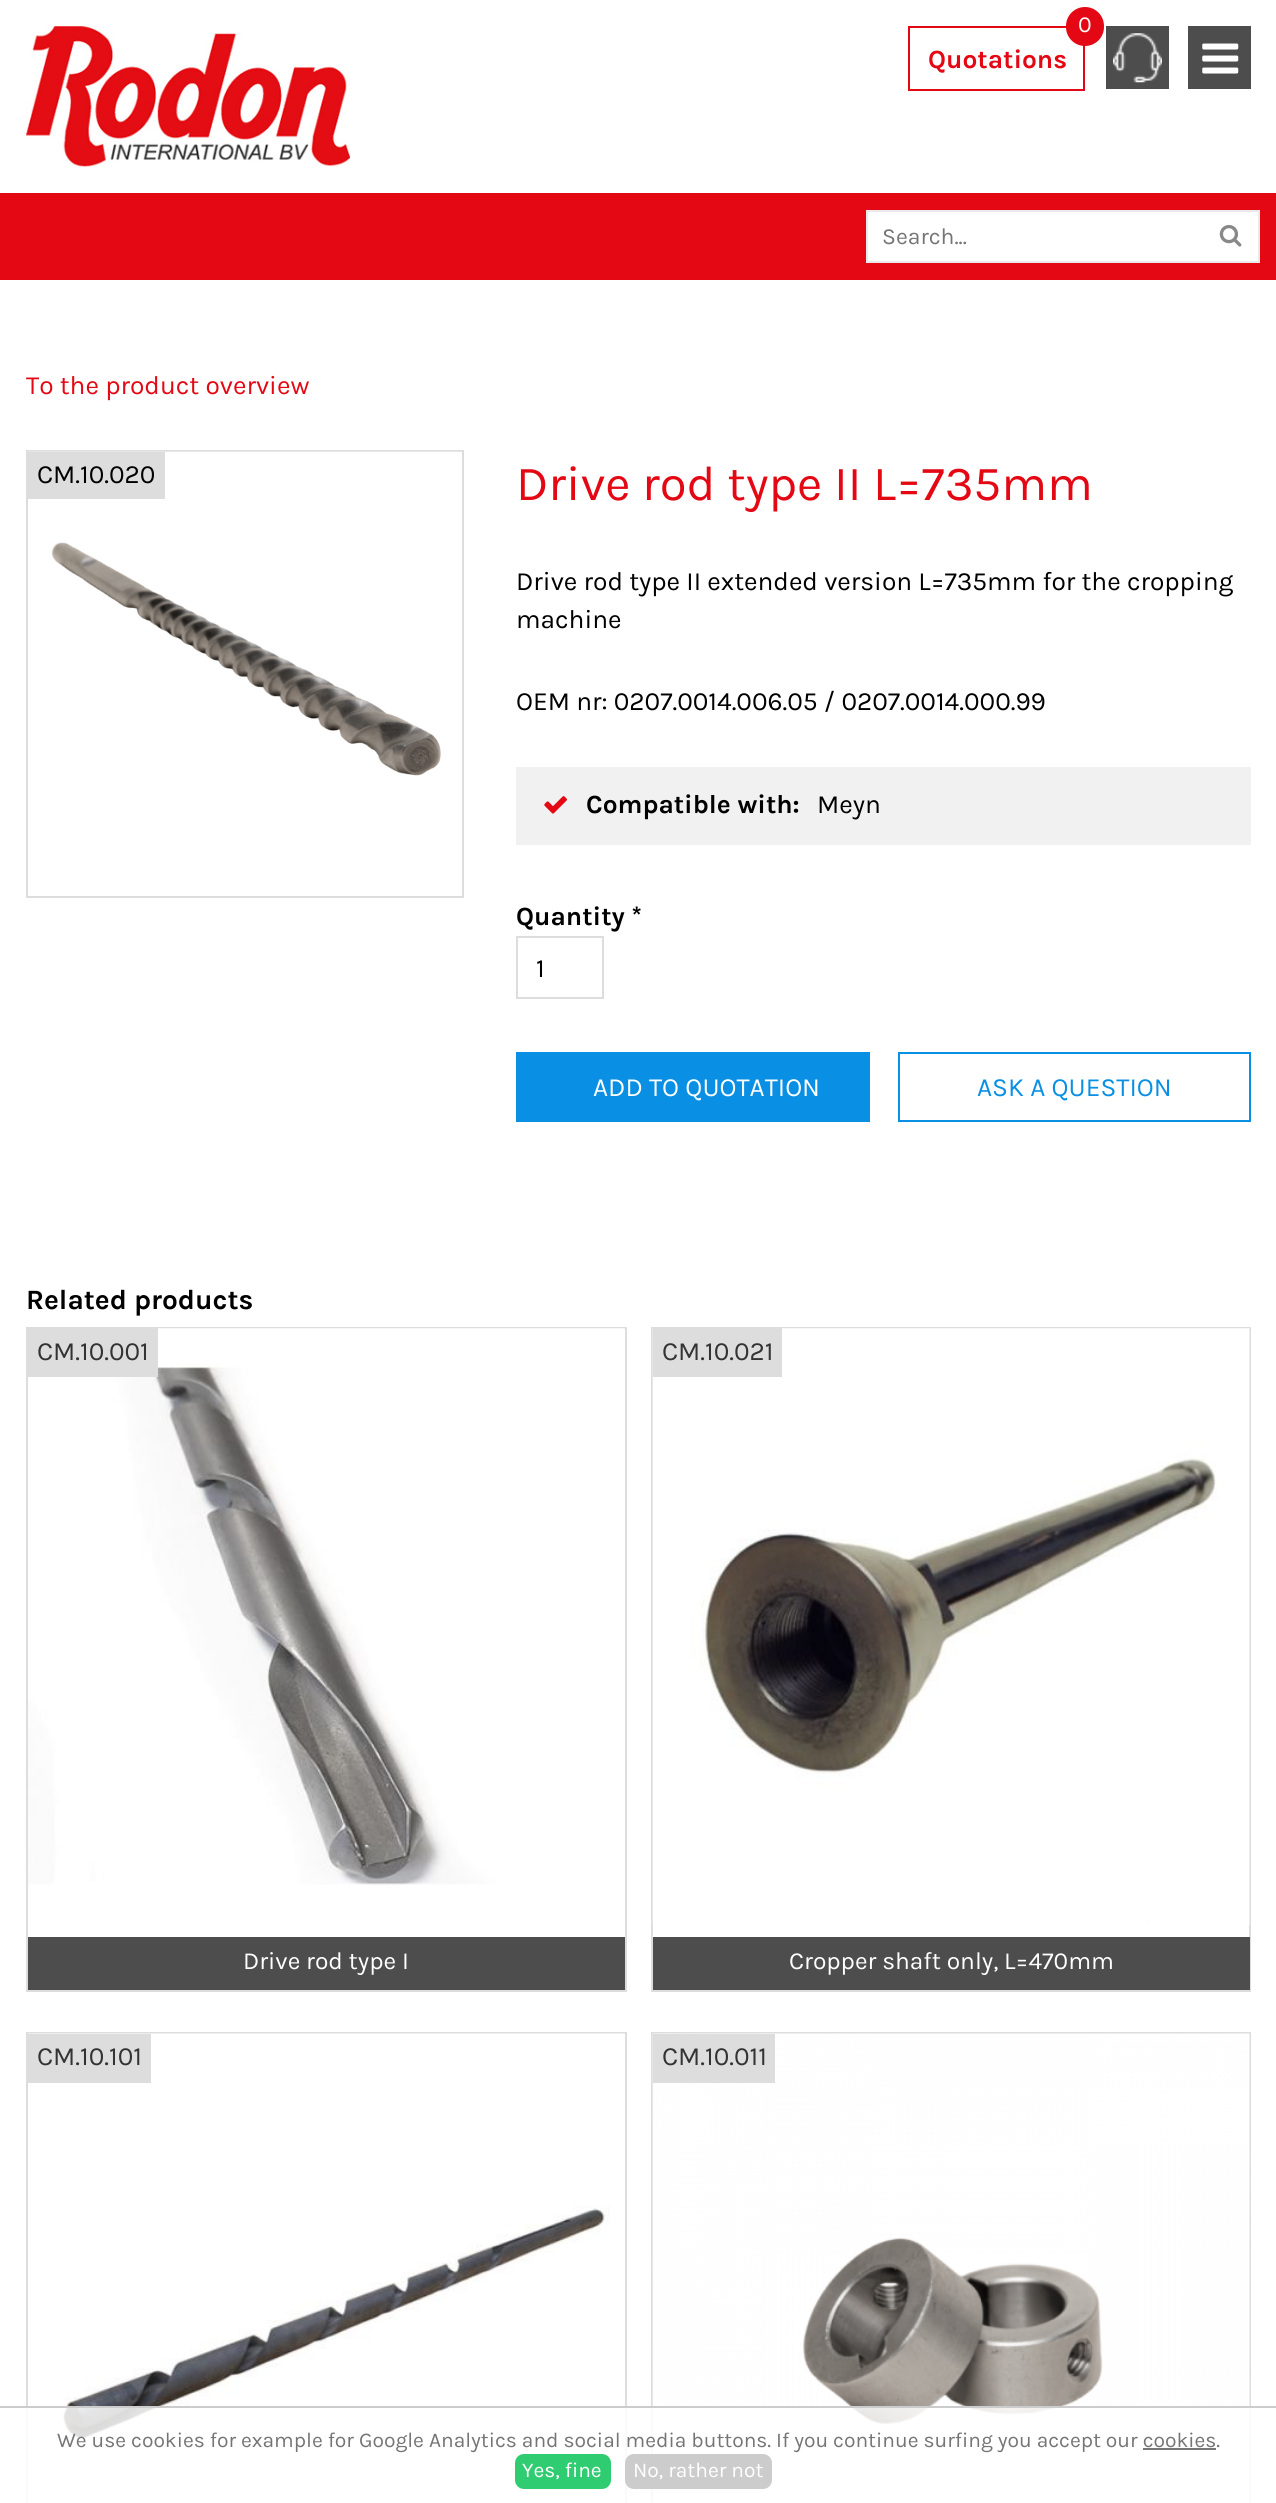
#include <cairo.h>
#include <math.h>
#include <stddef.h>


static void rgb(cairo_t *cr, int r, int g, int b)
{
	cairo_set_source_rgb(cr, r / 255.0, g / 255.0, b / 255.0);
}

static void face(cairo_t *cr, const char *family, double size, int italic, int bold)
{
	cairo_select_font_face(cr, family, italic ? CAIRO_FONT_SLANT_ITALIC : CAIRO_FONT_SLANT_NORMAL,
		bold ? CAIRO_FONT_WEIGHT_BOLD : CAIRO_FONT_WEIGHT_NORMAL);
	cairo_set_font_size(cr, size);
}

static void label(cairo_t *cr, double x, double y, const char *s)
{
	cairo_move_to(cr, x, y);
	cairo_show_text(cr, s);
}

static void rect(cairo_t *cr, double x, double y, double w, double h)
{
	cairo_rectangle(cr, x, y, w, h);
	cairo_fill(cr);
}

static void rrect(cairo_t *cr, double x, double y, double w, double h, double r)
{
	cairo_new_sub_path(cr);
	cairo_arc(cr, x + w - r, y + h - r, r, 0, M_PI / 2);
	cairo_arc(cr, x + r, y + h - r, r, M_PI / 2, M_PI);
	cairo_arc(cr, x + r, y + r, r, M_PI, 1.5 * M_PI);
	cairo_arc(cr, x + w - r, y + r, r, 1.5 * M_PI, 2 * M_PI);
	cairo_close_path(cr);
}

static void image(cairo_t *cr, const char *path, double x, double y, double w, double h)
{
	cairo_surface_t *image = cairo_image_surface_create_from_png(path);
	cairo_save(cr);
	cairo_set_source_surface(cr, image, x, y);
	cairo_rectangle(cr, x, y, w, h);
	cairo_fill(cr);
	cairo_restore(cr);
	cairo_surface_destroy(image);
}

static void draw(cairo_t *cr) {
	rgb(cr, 255, 255, 255);
	cairo_paint(cr);
	image(cr, "image0.png", 26, 26, 324, 141);
	cairo_rectangle(cr, 909, 27, 175, 63);
	rgb(cr, 227, 8, 19);
	cairo_stroke(cr);
	rrect(cr, 1066, 7, 38, 39, 19);
	cairo_fill(cr);
	face(cr, "Karla", 23, 0, 0);
	rgb(cr, 255, 255, 255);
	label(cr, 1078, 32, "0");
	face(cr, "Karla", 26.25, 0, 1);
	rgb(cr, 227, 8, 19);
	label(cr, 928, 68, "Quotations");
	rgb(cr, 77, 77, 77);
	rect(cr, 1106, 26, 63, 63);
	image(cr, "image1.png", 1113, 33, 49, 50);
	rect(cr, 1188, 26, 63, 63);
	image(cr, "image2.png", 1202, 43, 37, 31);
	rgb(cr, 227, 8, 19);
	rect(cr, 0, 193, 1276, 87);
	rgb(cr, 255, 255, 255);
	cairo_rectangle(cr, 867, 211, 392, 51);
	cairo_fill_preserve(cr);
	rgb(cr, 234, 234, 234);
	cairo_stroke(cr);
	face(cr, "Karla", 23, 0, 0);
	rgb(cr, 117, 117, 117);
	label(cr, 882, 244, "Search...");
	image(cr, "image3.png", 1219, 224, 23, 23);
	face(cr, "Karla", 26.25, 0, 0);
	rgb(cr, 227, 8, 19);
	label(cr, 26, 394, "To the product overview");
	cairo_rectangle(cr, 27, 451, 436, 446);
	rgb(cr, 221, 221, 221);
	cairo_stroke(cr);
	image(cr, "image4.png", 28, 451, 434, 325);
	rect(cr, 28, 452, 137, 47);
	rgb(cr, 0, 0, 0);
	label(cr, 37, 483, "CM.10.020");
	face(cr, "Karla", 49, 0, 0);
	rgb(cr, 227, 8, 19);
	label(cr, 516, 500, "Drive rod type II L=735mm");
	face(cr, "Karla", 26.25, 0, 0);
	rgb(cr, 0, 0, 0);
	label(cr, 516, 590, "Drive rod type II extended version L=735mm for the cropping");
	label(cr, 516, 628, "machine");
	label(cr, 516, 710, "OEM nr: 0207.0014.006.05 / 0207.0014.000.99");
	rgb(cr, 241, 241, 241);
	rect(cr, 516, 767, 735, 78);
	image(cr, "image5.png", 544, 796, 23, 18);
	face(cr, "Karla", 26.25, 0, 1);
	rgb(cr, 0, 0, 0);
	label(cr, 586, 813, "Compatible with:");
	face(cr, "Karla", 26.25, 0, 0);
	label(cr, 817, 813, "Meyn");
	face(cr, "Karla", 26.25, 0, 1);
	label(cr, 516, 925, "Quantity *");
	cairo_rectangle(cr, 517, 937, 86, 61);
	rgb(cr, 221, 221, 221);
	cairo_stroke(cr);
	face(cr, "Karla", 26.25, 0, 0);
	rgb(cr, 0, 0, 0);
	label(cr, 536, 977, "1");
	rgb(cr, 9, 143, 227);
	rect(cr, 516, 1052, 354, 70);
	rgb(cr, 255, 255, 255);
	label(cr, 593, 1096, "ADD TO QUOTATION");
	cairo_rectangle(cr, 899, 1053, 351, 68);
	rgb(cr, 9, 143, 227);
	cairo_stroke(cr);
	label(cr, 977, 1096, "ASK A QUESTION");
	face(cr, "Karla", 28, 0, 1);
	rgb(cr, 0, 0, 0);
	label(cr, 26, 1309, "Related products");
	cairo_rectangle(cr, 27, 1328, 599, 663);
	rgb(cr, 221, 221, 221);
	cairo_stroke(cr);
	image(cr, "image6.png", 28, 1328, 597, 557);
	rect(cr, 28, 1328, 130, 49);
	face(cr, "Karla", 26.25, 0, 0);
	rgb(cr, 51, 51, 51);
	label(cr, 37, 1360, "CM.10.001");
	rgb(cr, 77, 77, 77);
	rect(cr, 28, 1937, 597, 53);
	face(cr, "Karla", 24.5, 0, 0);
	rgb(cr, 255, 255, 255);
	label(cr, 243, 1969, "Drive rod type I");
	cairo_rectangle(cr, 652, 1328, 598, 663);
	rgb(cr, 221, 221, 221);
	cairo_stroke(cr);
	image(cr, "image7.png", 652, 1328, 598, 597);
	rect(cr, 653, 1328, 129, 49);
	face(cr, "Karla", 26.25, 0, 0);
	rgb(cr, 51, 51, 51);
	label(cr, 662, 1360, "CM.10.021");
	rgb(cr, 77, 77, 77);
	rect(cr, 653, 1937, 597, 53);
	face(cr, "Karla", 24.5, 0, 0);
	rgb(cr, 255, 255, 255);
	label(cr, 789, 1969, "Cropper shaft only, L=470mm");
	cairo_rectangle(cr, 27, 2033, 599, 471);
	rgb(cr, 221, 221, 221);
	cairo_stroke(cr);
	image(cr, "image8.png", 28, 2033, 597, 410);
	rect(cr, 28, 2034, 123, 49);
	face(cr, "Karla", 26.25, 0, 0);
	rgb(cr, 51, 51, 51);
	label(cr, 37, 2065, "CM.10.101");
	cairo_rectangle(cr, 652, 2033, 598, 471);
	rgb(cr, 221, 221, 221);
	cairo_stroke(cr);
	image(cr, "image9.png", 652, 2033, 598, 470);
	rect(cr, 653, 2034, 122, 49);
	rgb(cr, 51, 51, 51);
	label(cr, 662, 2065, "CM.10.011");
	cairo_set_source_rgba(cr, 1, 1, 1, 0.85);
	rect(cr, 26, 2408, 1225, 95);
	rgb(cr, 204, 204, 204);
	rect(cr, 0, 2406, 1276, 2);
	face(cr, "Karla", 21, 0, 0);
	rgb(cr, 117, 117, 117);
	label(cr, 57, 2447, "We use cookies for example for Google Analytics and social media buttons. If you continue surfing you accept our cookies.");
	rgb(cr, 119, 119, 119);
	rect(cr, 1143, 2448, 73, 2);
	rgb(cr, 47, 204, 113);
	rrect(cr, 515, 2454, 96, 35, 9);
	cairo_fill(cr);
	rgb(cr, 255, 255, 255);
	label(cr, 522, 2477, "Yes, fine");
	rgb(cr, 204, 204, 204);
	rrect(cr, 625, 2454, 147, 35, 9);
	cairo_fill(cr);
	rgb(cr, 255, 255, 255);
	label(cr, 633, 2477, "No, rather not");
}

int main(void) {
	cairo_surface_t *surface = cairo_image_surface_create(CAIRO_FORMAT_RGB24, 1276, 2503);
	cairo_t *cr = cairo_create(surface);
	cairo_font_options_t *options = cairo_font_options_create();
	cairo_font_options_set_hint_metrics(options, CAIRO_HINT_METRICS_OFF);
	cairo_font_options_set_hint_style(options, CAIRO_HINT_STYLE_NONE);
	cairo_set_font_options(cr, options);
	cairo_set_miter_limit(cr, 4);
	draw(cr);
	cairo_surface_write_to_png(surface, "render.png");
	cairo_font_options_destroy(options);
	cairo_destroy(cr);
	cairo_surface_destroy(surface);
	return 0;
}
